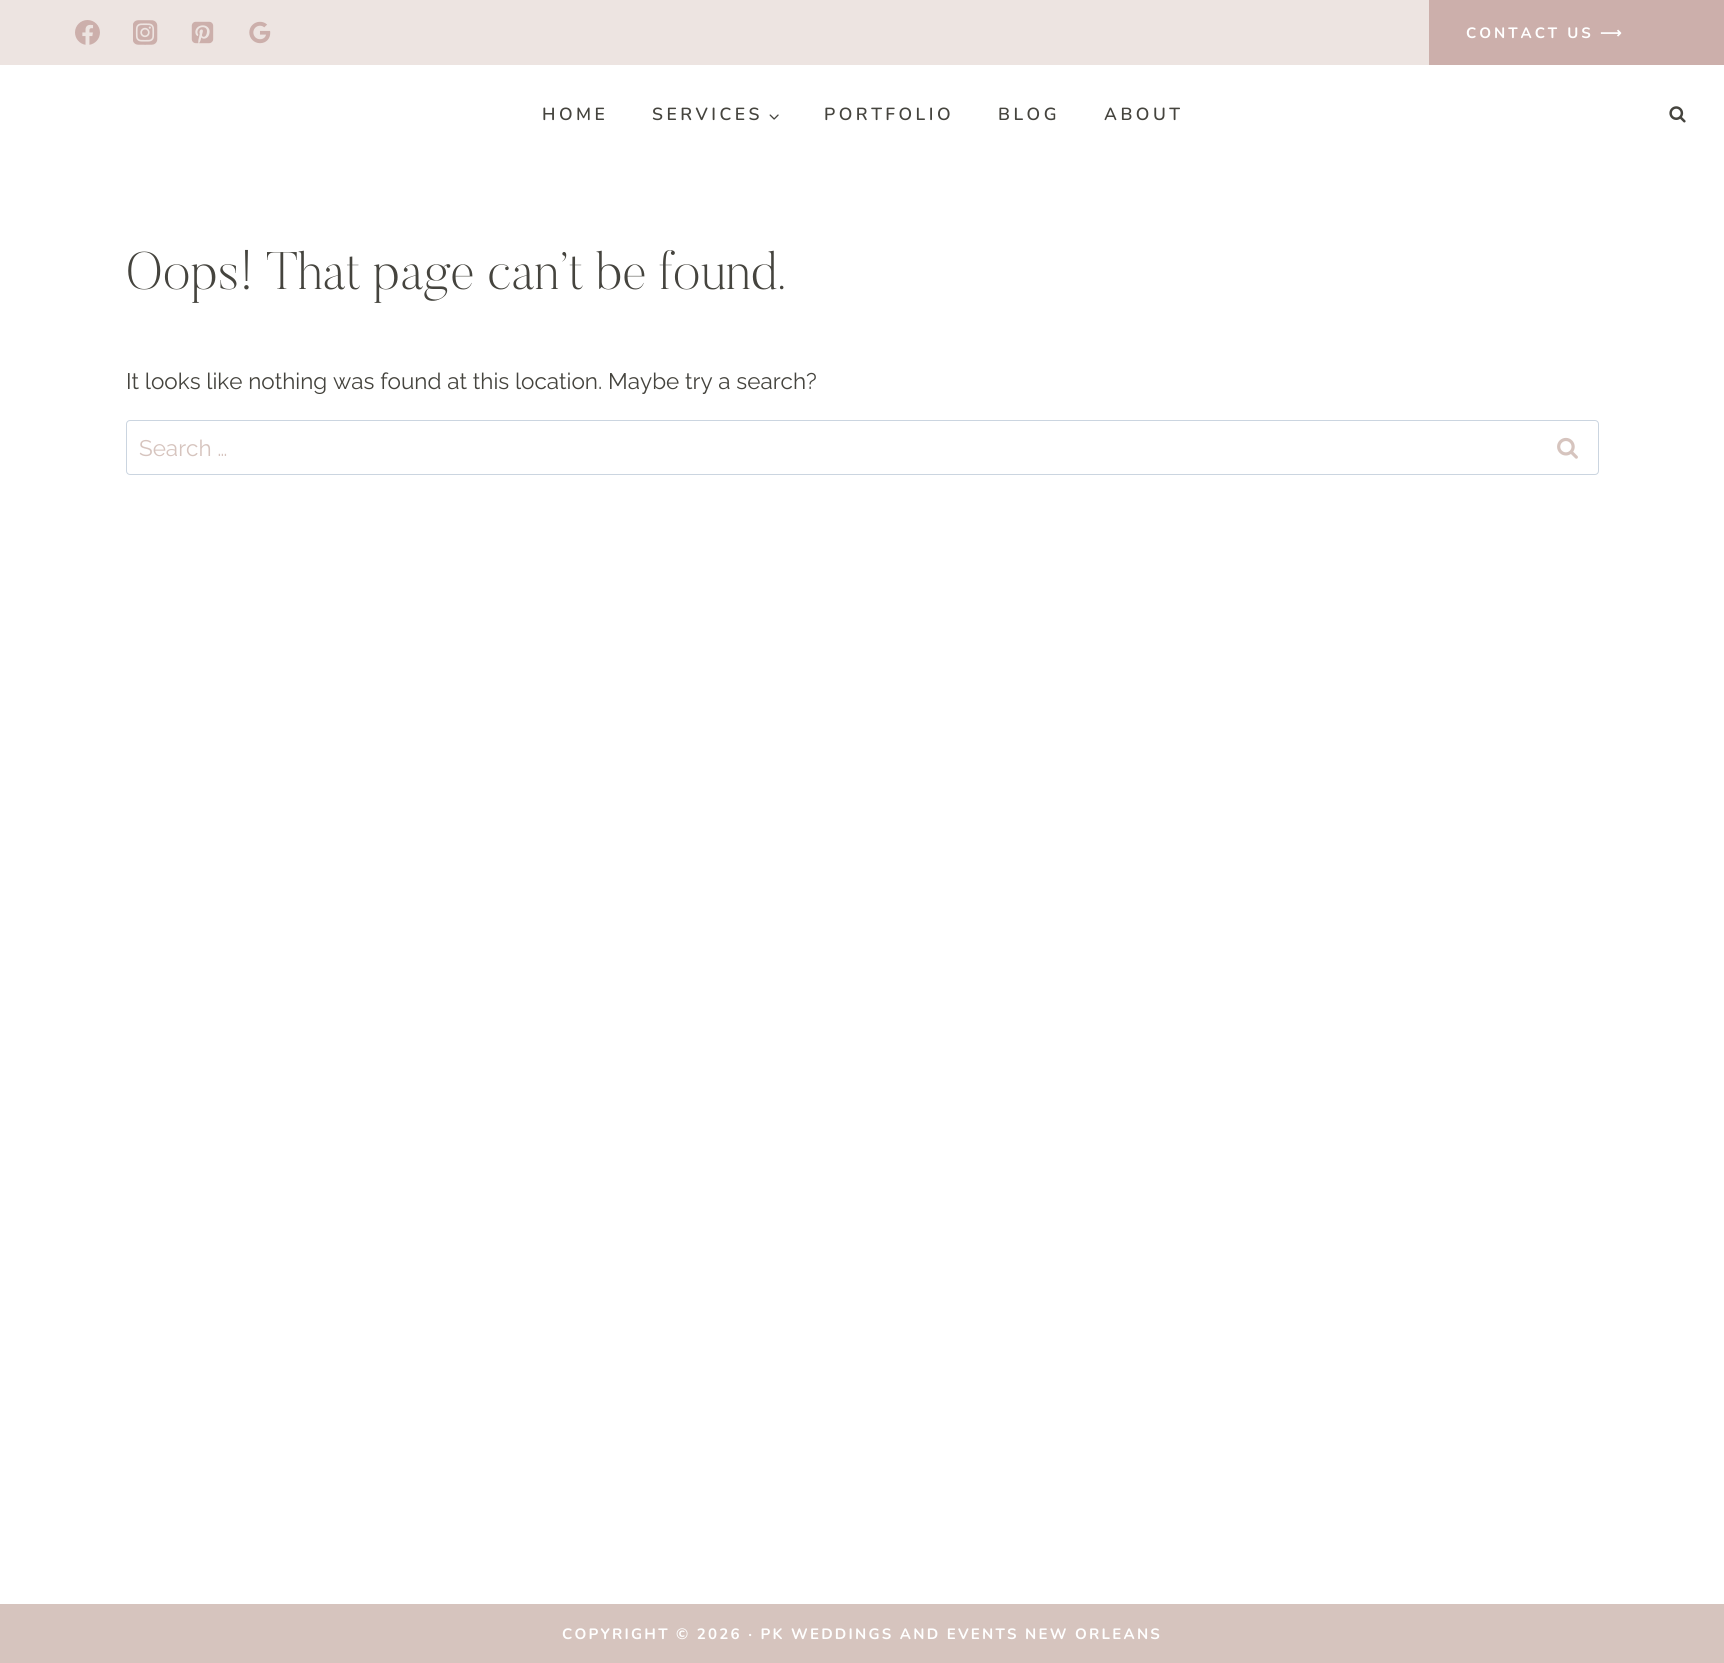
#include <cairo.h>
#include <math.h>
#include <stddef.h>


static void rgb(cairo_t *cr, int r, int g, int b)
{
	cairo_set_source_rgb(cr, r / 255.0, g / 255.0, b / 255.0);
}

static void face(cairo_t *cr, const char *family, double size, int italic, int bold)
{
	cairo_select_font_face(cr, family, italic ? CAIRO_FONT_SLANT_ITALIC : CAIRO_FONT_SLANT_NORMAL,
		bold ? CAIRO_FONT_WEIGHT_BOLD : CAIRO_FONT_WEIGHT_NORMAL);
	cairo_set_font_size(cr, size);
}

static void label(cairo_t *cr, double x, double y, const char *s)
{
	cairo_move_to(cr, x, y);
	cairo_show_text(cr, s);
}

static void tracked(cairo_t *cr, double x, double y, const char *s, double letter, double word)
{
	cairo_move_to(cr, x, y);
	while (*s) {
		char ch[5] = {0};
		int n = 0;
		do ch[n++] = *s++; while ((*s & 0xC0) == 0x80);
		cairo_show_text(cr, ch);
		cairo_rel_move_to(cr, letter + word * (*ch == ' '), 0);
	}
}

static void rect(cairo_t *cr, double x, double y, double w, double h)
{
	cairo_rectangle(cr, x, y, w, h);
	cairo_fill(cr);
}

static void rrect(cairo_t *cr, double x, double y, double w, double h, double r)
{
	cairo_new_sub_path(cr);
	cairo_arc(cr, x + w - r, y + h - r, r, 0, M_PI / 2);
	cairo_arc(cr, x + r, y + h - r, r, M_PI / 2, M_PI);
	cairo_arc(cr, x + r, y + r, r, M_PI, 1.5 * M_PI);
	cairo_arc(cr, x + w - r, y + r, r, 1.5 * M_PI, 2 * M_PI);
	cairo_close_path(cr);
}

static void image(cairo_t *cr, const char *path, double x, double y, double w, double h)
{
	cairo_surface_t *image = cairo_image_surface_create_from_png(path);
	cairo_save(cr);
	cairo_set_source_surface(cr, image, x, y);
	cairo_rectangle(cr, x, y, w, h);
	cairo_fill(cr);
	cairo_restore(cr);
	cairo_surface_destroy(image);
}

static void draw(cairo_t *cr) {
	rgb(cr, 255, 255, 255);
	cairo_paint(cr);
	rgb(cr, 237, 228, 225);
	rect(cr, 0, 0, 1429, 65);
	image(cr, "image0.png", 75, 20, 25, 25);
	image(cr, "image1.png", 133, 20, 25, 25);
	image(cr, "image2.png", 191, 21, 23, 23);
	image(cr, "image3.png", 249, 21, 22, 23);
	rgb(cr, 204, 175, 171);
	rect(cr, 1429, 0, 295, 65);
	face(cr, "Nunito", 15, 0, 1);
	rgb(cr, 255, 255, 255);
	tracked(cr, 1466, 38, "CONTACT US", 3, 0);
	face(cr, "DejaVu Sans", 15, 0, 1);
	tracked(cr, 1600, 38, "⟶", 3, 0);
	face(cr, "Nunito SemiBold", 17.5, 0, 0);
	rgb(cr, 69, 68, 62);
	tracked(cr, 542, 120, "HOME", 3.5, 0);
	tracked(cr, 652, 120, "SERVICES", 3.5, 0);
	image(cr, "image4.png", 769, 114, 10, 6);
	tracked(cr, 824, 120, "PORTFOLIO", 3.5, 0);
	tracked(cr, 998, 120, "BLOG", 3.5, 0);
	tracked(cr, 1104, 120, "ABOUT", 3.5, 0);
	image(cr, "image5.png", 1669, 106, 17, 17);
	face(cr, "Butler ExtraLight", 52.5, 0, 0);
	label(cr, 126, 289, "Oops! That page can’t be found.");
	face(cr, "Raleway", 22.5, 0, 0);
	label(cr, 126, 389, "It looks like nothing was found at this location. Maybe try a search?");
	rrect(cr, 126.5, 420.5, 1472, 54, 3.5);
	rgb(cr, 203, 213, 224);
	cairo_set_line_width(cr, 1);
	cairo_stroke(cr);
	rgb(cr, 214, 196, 190);
	label(cr, 139, 456, "Search …");
	image(cr, "image6.png", 1557, 437, 21, 22);
	rect(cr, 0, 1604, 1724, 59);
	face(cr, "Nunito", 15, 0, 1);
	rgb(cr, 255, 255, 255);
	tracked(cr, 562, 1639, "COPYRIGHT © 2026 · PK WEDDINGS AND EVENTS NEW ORLEANS", 2.25, 0);
}

int main(void) {
	cairo_surface_t *surface = cairo_image_surface_create(CAIRO_FORMAT_RGB24, 1724, 1663);
	cairo_t *cr = cairo_create(surface);
	cairo_font_options_t *options = cairo_font_options_create();
	cairo_font_options_set_hint_metrics(options, CAIRO_HINT_METRICS_OFF);
	cairo_font_options_set_hint_style(options, CAIRO_HINT_STYLE_NONE);
	cairo_set_font_options(cr, options);
	cairo_set_miter_limit(cr, 4);
	draw(cr);
	cairo_surface_write_to_png(surface, "render.png");
	cairo_font_options_destroy(options);
	cairo_destroy(cr);
	cairo_surface_destroy(surface);
	return 0;
}
